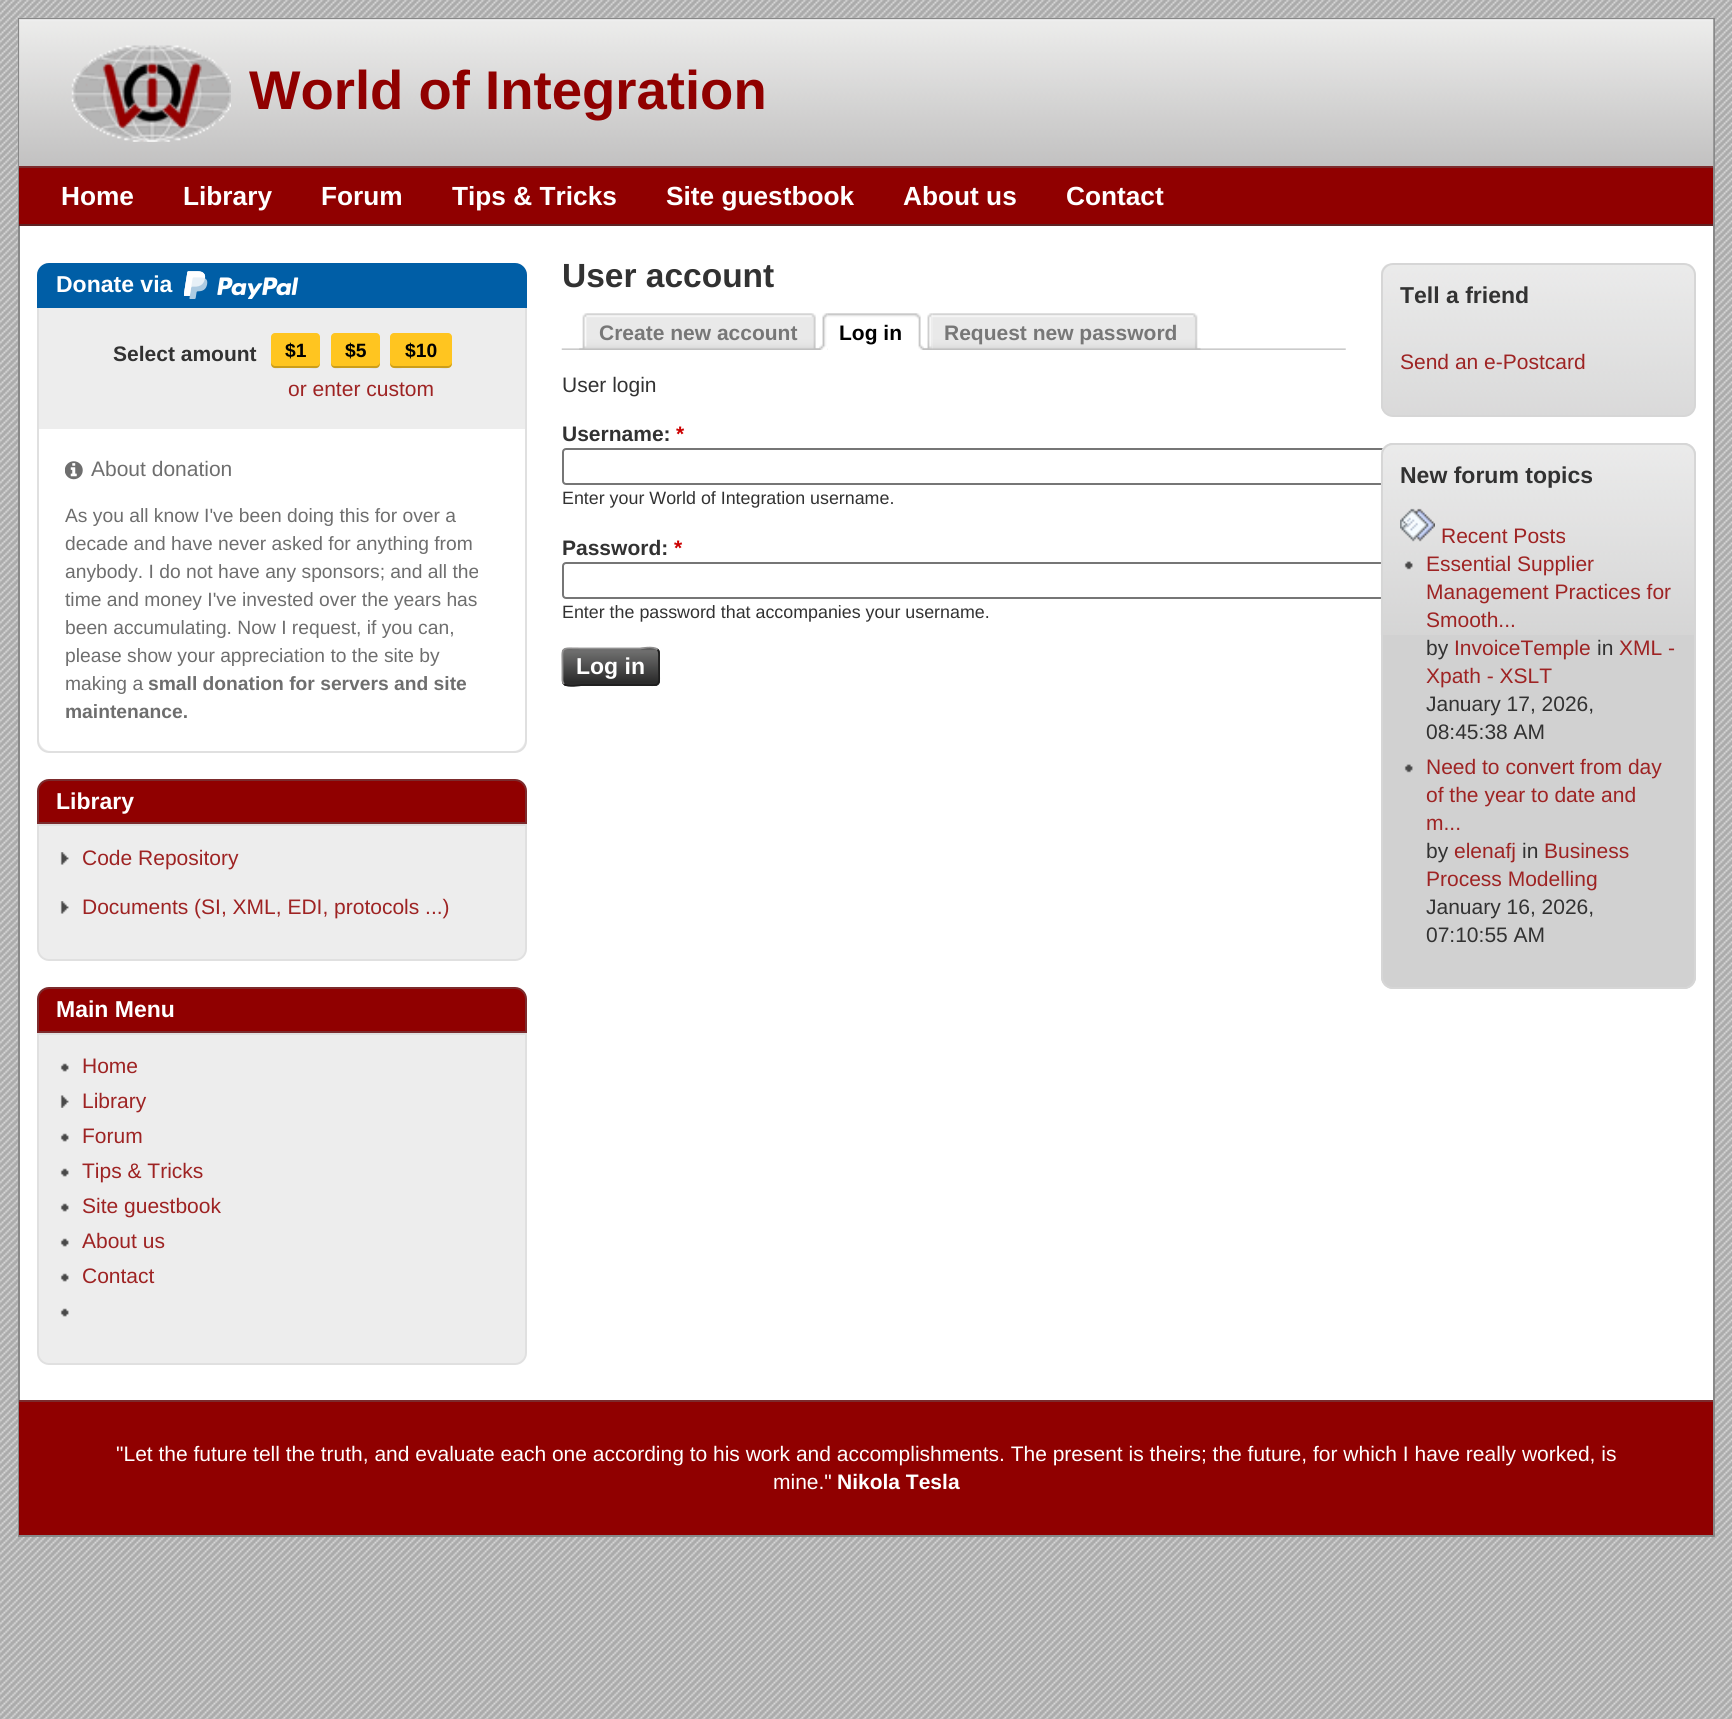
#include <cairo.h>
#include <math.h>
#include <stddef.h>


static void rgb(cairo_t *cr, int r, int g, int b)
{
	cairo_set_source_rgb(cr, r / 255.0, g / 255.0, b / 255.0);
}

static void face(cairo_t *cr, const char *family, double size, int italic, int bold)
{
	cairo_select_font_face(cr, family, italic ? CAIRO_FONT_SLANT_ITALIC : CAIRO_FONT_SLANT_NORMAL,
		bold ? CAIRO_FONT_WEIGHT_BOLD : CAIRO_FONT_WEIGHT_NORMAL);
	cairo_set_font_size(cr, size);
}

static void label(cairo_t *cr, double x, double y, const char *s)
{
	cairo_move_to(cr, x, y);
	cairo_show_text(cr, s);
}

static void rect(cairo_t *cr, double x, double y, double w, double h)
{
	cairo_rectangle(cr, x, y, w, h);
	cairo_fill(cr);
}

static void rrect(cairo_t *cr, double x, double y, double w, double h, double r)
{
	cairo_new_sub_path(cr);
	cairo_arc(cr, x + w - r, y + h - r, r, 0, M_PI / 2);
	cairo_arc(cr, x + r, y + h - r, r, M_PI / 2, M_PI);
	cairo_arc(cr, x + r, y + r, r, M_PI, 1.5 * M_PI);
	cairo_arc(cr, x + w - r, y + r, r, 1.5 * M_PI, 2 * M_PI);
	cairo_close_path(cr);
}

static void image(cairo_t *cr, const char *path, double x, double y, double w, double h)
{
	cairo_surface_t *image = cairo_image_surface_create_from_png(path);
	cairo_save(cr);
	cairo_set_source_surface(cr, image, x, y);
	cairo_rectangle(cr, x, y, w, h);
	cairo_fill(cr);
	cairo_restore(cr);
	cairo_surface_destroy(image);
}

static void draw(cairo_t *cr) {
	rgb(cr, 255, 255, 255);
	cairo_paint(cr);
	image(cr, "image0.png", 0, 0, 1732, 1719);
	rgb(cr, 255, 255, 255);
	rect(cr, 20, 226, 1693, 1174);
	cairo_rectangle(cr, 19, 19, 1695, 1517);
	rgb(cr, 136, 136, 136);
	cairo_stroke(cr);
	rgb(cr, 193, 193, 193);
	rect(cr, 19, 19, 1694, 147);
	image(cr, "image1.png", 19, 19, 1695, 148);
	image(cr, "image2.png", 71, 45, 160, 97);
	face(cr, "Liberation Sans", 54.5, 0, 1);
	rgb(cr, 144, 0, 0);
	label(cr, 249, 109, "World of Integration");
	rect(cr, 19, 168, 1694, 56);
	rgb(cr, 124, 43, 45);
	rect(cr, 19, 166, 1694, 2);
	rgb(cr, 95, 35, 36);
	rect(cr, 19, 224, 1694, 2);
	face(cr, "Liberation Sans", 26.25, 0, 1);
	rgb(cr, 255, 255, 255);
	label(cr, 61, 205, "Home");
	label(cr, 183, 205, "Library");
	label(cr, 321, 205, "Forum");
	label(cr, 452, 205, "Tips & Tricks");
	label(cr, 666, 205, "Site guestbook");
	label(cr, 903, 205, "About us");
	label(cr, 1066, 205, "Contact");
	rgb(cr, 237, 237, 237);
	rrect(cr, 38, 264, 488, 488, 11);
	cairo_fill_preserve(cr);
	rgb(cr, 224, 224, 224);
	cairo_stroke(cr);
	rgb(cr, 0, 94, 166);
	cairo_new_path(cr);
	cairo_move_to(cr, 49, 263);
	cairo_line_to(cr, 515, 263);
	cairo_curve_to(cr, 521.5, 263, 527, 268.5, 527, 275);
	cairo_line_to(cr, 527, 308);
	cairo_line_to(cr, 37, 308);
	cairo_line_to(cr, 37, 275);
	cairo_curve_to(cr, 37, 268.5, 42.5, 263, 49, 263);
	cairo_close_path(cr);
	cairo_fill(cr);
	face(cr, "Liberation Sans", 23, 0, 1);
	rgb(cr, 255, 255, 255);
	label(cr, 56, 292, "Donate via");
	image(cr, "image3.png", 184, 271, 115, 28);
	face(cr, "Liberation Sans", 21, 0, 1);
	rgb(cr, 50, 50, 50);
	label(cr, 113, 361, "Select amount");
	rgb(cr, 255, 197, 32);
	rrect(cr, 271, 333, 49, 35, 4);
	cairo_fill(cr);
	cairo_set_source_rgba(cr, 0, 0, 0, 0.2);
	cairo_new_path(cr);
	cairo_move_to(cr, 271, 362);
	cairo_curve_to(cr, 271, 370, 275, 368, 282, 368);
	cairo_line_to(cr, 309, 368);
	cairo_curve_to(cr, 316, 368, 320, 370, 320, 362);
	cairo_curve_to(cr, 320, 364, 319, 366, 317, 366);
	cairo_line_to(cr, 275, 366);
	cairo_curve_to(cr, 273, 366, 271, 364, 271, 362);
	cairo_close_path(cr);
	cairo_fill(cr);
	face(cr, "Liberation Sans", 19.25, 0, 1);
	rgb(cr, 0, 0, 0);
	label(cr, 285, 357, "$1");
	rgb(cr, 255, 197, 32);
	rrect(cr, 331, 333, 49, 35, 4);
	cairo_fill(cr);
	cairo_set_source_rgba(cr, 0, 0, 0, 0.2);
	cairo_new_path(cr);
	cairo_move_to(cr, 331, 362);
	cairo_curve_to(cr, 331, 370, 335, 368, 342, 368);
	cairo_line_to(cr, 369, 368);
	cairo_curve_to(cr, 376, 368, 380, 370, 380, 362);
	cairo_curve_to(cr, 380, 364, 378, 366, 376, 366);
	cairo_line_to(cr, 334, 366);
	cairo_curve_to(cr, 332, 366, 331, 364, 331, 362);
	cairo_close_path(cr);
	cairo_fill(cr);
	rgb(cr, 0, 0, 0);
	label(cr, 345, 357, "$5");
	rgb(cr, 255, 197, 32);
	rrect(cr, 390, 333, 62, 35, 4);
	cairo_fill(cr);
	cairo_set_source_rgba(cr, 0, 0, 0, 0.2);
	cairo_new_path(cr);
	cairo_move_to(cr, 390, 362);
	cairo_curve_to(cr, 390, 370, 396, 368, 403, 368);
	cairo_line_to(cr, 439, 368);
	cairo_curve_to(cr, 446, 368, 452, 370, 452, 362);
	cairo_curve_to(cr, 452, 364, 450, 366, 448, 366);
	cairo_line_to(cr, 394, 366);
	cairo_curve_to(cr, 392, 366, 390, 364, 390, 362);
	cairo_close_path(cr);
	cairo_fill(cr);
	rgb(cr, 0, 0, 0);
	label(cr, 405, 357, "$10");
	face(cr, "Liberation Sans", 21, 0, 0);
	rgb(cr, 158, 35, 35);
	label(cr, 288, 396, "or enter custom");
	rgb(cr, 255, 255, 255);
	cairo_new_path(cr);
	cairo_move_to(cr, 39, 429);
	cairo_line_to(cr, 525, 429);
	cairo_line_to(cr, 525, 739);
	cairo_curve_to(cr, 525, 745.5, 519.5, 751, 513, 751);
	cairo_line_to(cr, 51, 751);
	cairo_curve_to(cr, 44.5, 751, 39, 745.5, 39, 739);
	cairo_close_path(cr);
	cairo_fill(cr);
	image(cr, "image4.png", 65, 461, 18, 19);
	rgb(cr, 110, 110, 110);
	label(cr, 91, 476, "About donation");
	face(cr, "Liberation Sans", 19.25, 0, 0);
	label(cr, 65, 522, "As you all know I've been doing this for over a");
	label(cr, 65, 550, "decade and have never asked for anything from");
	label(cr, 65, 578, "anybody. I do not have any sponsors; and all the");
	label(cr, 65, 606, "time and money I've invested over the years has");
	label(cr, 65, 634, "been accumulating. Now I request, if you can,");
	label(cr, 65, 662, "please show your appreciation to the site by");
	label(cr, 65, 690, "making a");
	face(cr, "Liberation Sans", 19.25, 0, 1);
	label(cr, 148, 690, "small donation for servers and site");
	label(cr, 65, 718, "maintenance.");
	rgb(cr, 144, 0, 0);
	cairo_new_path(cr);
	cairo_move_to(cr, 49, 780);
	cairo_line_to(cr, 515, 780);
	cairo_curve_to(cr, 521, 780, 526, 785, 526, 791);
	cairo_line_to(cr, 526, 823);
	cairo_line_to(cr, 38, 823);
	cairo_line_to(cr, 38, 791);
	cairo_curve_to(cr, 38, 785, 43, 780, 49, 780);
	cairo_close_path(cr);
	cairo_fill_preserve(cr);
	rgb(cr, 124, 43, 45);
	cairo_stroke(cr);
	face(cr, "Liberation Sans", 23, 0, 1);
	rgb(cr, 255, 255, 255);
	label(cr, 56, 809, "Library");
	rgb(cr, 237, 237, 237);
	cairo_new_path(cr);
	cairo_move_to(cr, 38, 825);
	cairo_line_to(cr, 526, 825);
	cairo_line_to(cr, 526, 949);
	cairo_curve_to(cr, 526, 955, 521, 960, 515, 960);
	cairo_line_to(cr, 49, 960);
	cairo_curve_to(cr, 43, 960, 38, 955, 38, 949);
	cairo_close_path(cr);
	cairo_fill_preserve(cr);
	rgb(cr, 224, 224, 224);
	cairo_stroke(cr);
	image(cr, "image5.png", 60, 852, 9, 13);
	face(cr, "Liberation Sans", 21, 0, 0);
	rgb(cr, 158, 35, 35);
	label(cr, 82, 865, "Code Repository");
	image(cr, "image5.png", 60, 901, 9, 13);
	label(cr, 82, 914, "Documents (SI, XML, EDI, protocols ...)");
	rgb(cr, 144, 0, 0);
	cairo_new_path(cr);
	cairo_move_to(cr, 49, 988);
	cairo_line_to(cr, 515, 988);
	cairo_curve_to(cr, 521, 988, 526, 993, 526, 999);
	cairo_line_to(cr, 526, 1032);
	cairo_line_to(cr, 38, 1032);
	cairo_line_to(cr, 38, 999);
	cairo_curve_to(cr, 38, 993, 43, 988, 49, 988);
	cairo_close_path(cr);
	cairo_fill_preserve(cr);
	rgb(cr, 124, 43, 45);
	cairo_stroke(cr);
	face(cr, "Liberation Sans", 23, 0, 1);
	rgb(cr, 255, 255, 255);
	label(cr, 56, 1017, "Main Menu");
	rgb(cr, 237, 237, 237);
	cairo_new_path(cr);
	cairo_move_to(cr, 38, 1034);
	cairo_line_to(cr, 526, 1034);
	cairo_line_to(cr, 526, 1353);
	cairo_curve_to(cr, 526, 1359, 521, 1364, 515, 1364);
	cairo_line_to(cr, 49, 1364);
	cairo_curve_to(cr, 43, 1364, 38, 1359, 38, 1353);
	cairo_close_path(cr);
	cairo_fill_preserve(cr);
	rgb(cr, 224, 224, 224);
	cairo_stroke(cr);
	image(cr, "image6.png", 60, 1063, 9, 9);
	face(cr, "Liberation Sans", 21, 0, 0);
	rgb(cr, 158, 35, 35);
	label(cr, 82, 1073, "Home");
	image(cr, "image7.png", 60, 1095, 9, 13);
	label(cr, 82, 1108, "Library");
	image(cr, "image6.png", 60, 1133, 9, 9);
	label(cr, 82, 1143, "Forum");
	image(cr, "image6.png", 60, 1168, 9, 9);
	label(cr, 82, 1178, "Tips & Tricks");
	image(cr, "image6.png", 60, 1203, 9, 9);
	label(cr, 82, 1213, "Site guestbook");
	image(cr, "image6.png", 60, 1238, 9, 9);
	label(cr, 82, 1248, "About us");
	image(cr, "image6.png", 60, 1273, 9, 9);
	label(cr, 82, 1283, "Contact");
	image(cr, "image6.png", 60, 1308, 9, 9);
	face(cr, "Liberation Sans", 33.5, 0, 1);
	rgb(cr, 50, 50, 50);
	label(cr, 562, 287, "User account");
	image(cr, "image8.png", 561, 348, 785, 2);
	image(cr, "image9.png", 579, 313, 9, 37);
	image(cr, "image10.png", 588, 313, 231, 37);
	face(cr, "Liberation Sans", 21, 0, 1);
	rgb(cr, 119, 119, 119);
	label(cr, 599, 340, "Create new account");
	image(cr, "image11.png", 819, 313, 9, 37);
	image(cr, "image12.png", 827, 313, 97, 37);
	rgb(cr, 0, 0, 0);
	label(cr, 839, 340, "Log in");
	image(cr, "image13.png", 924, 313, 9, 37);
	image(cr, "image14.png", 932, 313, 269, 37);
	rgb(cr, 119, 119, 119);
	label(cr, 944, 340, "Request new password");
	face(cr, "Liberation Sans", 21, 0, 0);
	rgb(cr, 50, 50, 50);
	label(cr, 562, 392, "User login");
	face(cr, "Liberation Sans", 21, 0, 1);
	label(cr, 562, 441, "Username:");
	rgb(cr, 204, 0, 0);
	label(cr, 676, 441, "*");
	rrect(cr, 563, 449, 882, 35, 3);
	rgb(cr, 118, 118, 118);
	cairo_stroke(cr);
	face(cr, "Liberation Sans", 17.85, 0, 0);
	rgb(cr, 50, 50, 50);
	label(cr, 562, 504, "Enter your World of Integration username.");
	face(cr, "Liberation Sans", 21, 0, 1);
	label(cr, 562, 555, "Password:");
	rgb(cr, 204, 0, 0);
	label(cr, 674, 555, "*");
	rrect(cr, 563, 563, 882, 35, 3);
	rgb(cr, 118, 118, 118);
	cairo_stroke(cr);
	face(cr, "Liberation Sans", 17.85, 0, 0);
	rgb(cr, 50, 50, 50);
	label(cr, 562, 618, "Enter the password that accompanies your username.");
	rgb(cr, 44, 44, 44);
	rrect(cr, 562, 648, 98, 38, 5);
	cairo_fill(cr);
	image(cr, "image15.png", 561, 649, 99, 37);
	cairo_new_path(cr);
	cairo_move_to(cr, 657.5, 649.5);
	cairo_curve_to(cr, 659.5, 651.5, 659, 655, 659, 657.5);
	cairo_line_to(cr, 659, 667);
	cairo_curve_to(cr, 659, 688, 662, 685, 640, 685);
	cairo_line_to(cr, 581.5, 685);
	cairo_curve_to(cr, 581.5, 685, 567.5, 687.5, 564, 684);
	rgb(cr, 30, 30, 30);
	cairo_set_line_width(cr, 1.8);
	cairo_stroke(cr);
	cairo_new_path(cr);
	cairo_move_to(cr, 564, 684);
	cairo_curve_to(cr, 562, 682, 562.5, 678.5, 562.5, 676);
	cairo_line_to(cr, 562.5, 667);
	cairo_curve_to(cr, 562.5, 645.5, 559.5, 648.5, 581.5, 648.5);
	cairo_line_to(cr, 640, 648.5);
	cairo_curve_to(cr, 640, 648.5, 654, 646, 657.5, 649.5);
	rgb(cr, 145, 144, 144);
	cairo_stroke(cr);
	face(cr, "Liberation Sans", 23, 0, 1);
	rgb(cr, 255, 255, 255);
	label(cr, 576, 674, "Log in");
	image(cr, "image16.png", 1381, 264, 315, 152);
	rrect(cr, 1382, 264, 313, 152, 11);
	rgb(cr, 214, 214, 214);
	cairo_set_line_width(cr, 2);
	cairo_stroke(cr);
	rgb(cr, 50, 50, 50);
	label(cr, 1400, 303, "Tell a friend");
	face(cr, "Liberation Sans", 21, 0, 0);
	rgb(cr, 158, 35, 35);
	label(cr, 1400, 369, "Send an e-Postcard");
	rgb(cr, 209, 209, 209);
	rrect(cr, 1381, 443, 315, 546, 12);
	cairo_fill(cr);
	image(cr, "image17.png", 1380, 444, 316, 191);
	rrect(cr, 1382, 444, 313, 544, 11);
	rgb(cr, 214, 214, 214);
	cairo_stroke(cr);
	face(cr, "Liberation Sans", 23, 0, 1);
	rgb(cr, 50, 50, 50);
	label(cr, 1400, 483, "New forum topics");
	image(cr, "image18.png", 1400, 508, 35, 34);
	face(cr, "Liberation Sans", 21, 0, 0);
	rgb(cr, 158, 35, 35);
	label(cr, 1441, 543, "Recent Posts");
	image(cr, "image19.png", 1404, 561, 9, 9);
	label(cr, 1426, 571, "Essential Supplier");
	label(cr, 1426, 599, "Management Practices for");
	label(cr, 1426, 627, "Smooth...");
	rgb(cr, 50, 50, 50);
	label(cr, 1426, 655, "by");
	rgb(cr, 158, 35, 35);
	label(cr, 1454, 655, "InvoiceTemple");
	rgb(cr, 50, 50, 50);
	label(cr, 1597, 655, "in");
	rgb(cr, 158, 35, 35);
	label(cr, 1619, 655, "XML -");
	label(cr, 1426, 683, "Xpath - XSLT");
	rgb(cr, 50, 50, 50);
	label(cr, 1426, 711, "January 17, 2026,");
	label(cr, 1426, 739, "08:45:38 AM");
	image(cr, "image20.png", 1404, 764, 9, 9);
	rgb(cr, 158, 35, 35);
	label(cr, 1426, 774, "Need to convert from day");
	label(cr, 1426, 802, "of the year to date and");
	label(cr, 1426, 830, "m...");
	rgb(cr, 50, 50, 50);
	label(cr, 1426, 858, "by");
	rgb(cr, 158, 35, 35);
	label(cr, 1454, 858, "elenafj");
	rgb(cr, 50, 50, 50);
	label(cr, 1522, 858, "in");
	rgb(cr, 158, 35, 35);
	label(cr, 1544, 858, "Business");
	label(cr, 1426, 886, "Process Modelling");
	rgb(cr, 50, 50, 50);
	label(cr, 1426, 914, "January 16, 2026,");
	label(cr, 1426, 942, "07:10:55 AM");
	rgb(cr, 144, 0, 0);
	rect(cr, 19, 1402, 1694, 133);
	rgb(cr, 124, 43, 45);
	rect(cr, 19, 1400, 1694, 2);
	rgb(cr, 255, 255, 255);
	label(cr, 116, 1461, "\"Let the future tell the truth, and evaluate each one according to his work and accomplishments. The present is theirs; the future, for which I have really worked, is");
	label(cr, 773, 1489, "mine.\"");
	face(cr, "Liberation Sans", 21, 0, 1);
	label(cr, 837, 1489, "Nikola Tesla");
}

int main(void) {
	cairo_surface_t *surface = cairo_image_surface_create(CAIRO_FORMAT_RGB24, 1732, 1719);
	cairo_t *cr = cairo_create(surface);
	cairo_font_options_t *options = cairo_font_options_create();
	cairo_font_options_set_hint_metrics(options, CAIRO_HINT_METRICS_OFF);
	cairo_font_options_set_hint_style(options, CAIRO_HINT_STYLE_NONE);
	cairo_set_font_options(cr, options);
	cairo_set_miter_limit(cr, 4);
	draw(cr);
	cairo_surface_write_to_png(surface, "render.png");
	cairo_font_options_destroy(options);
	cairo_destroy(cr);
	cairo_surface_destroy(surface);
	return 0;
}
